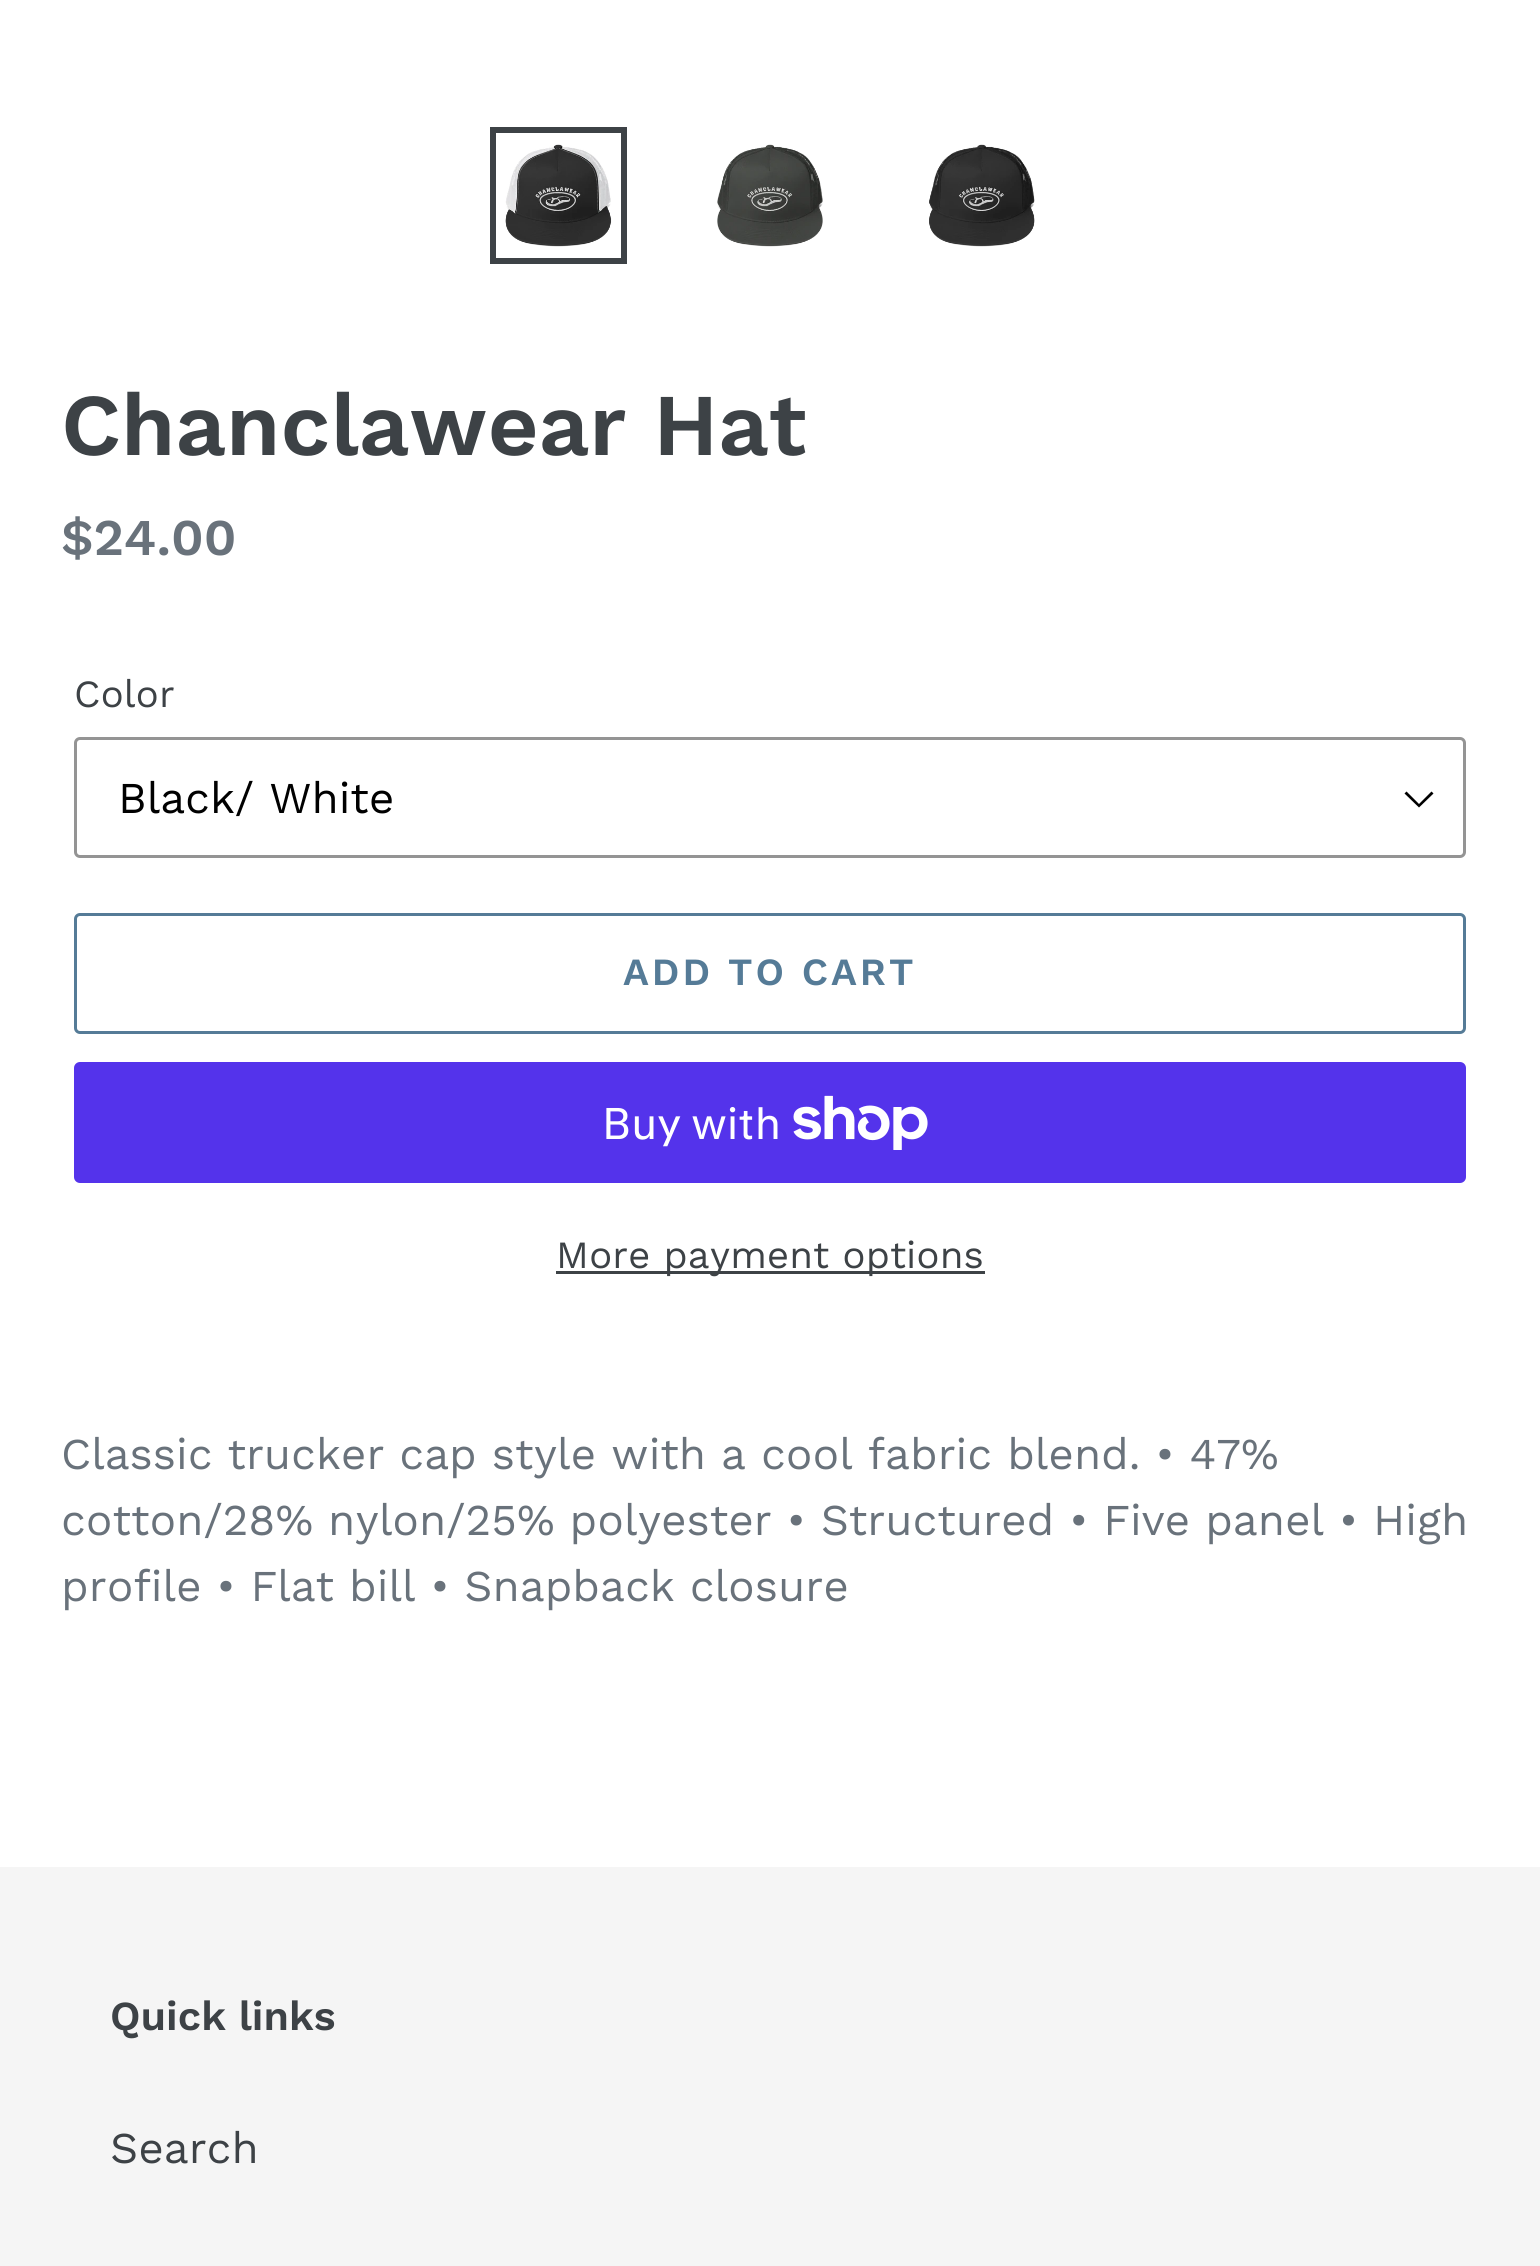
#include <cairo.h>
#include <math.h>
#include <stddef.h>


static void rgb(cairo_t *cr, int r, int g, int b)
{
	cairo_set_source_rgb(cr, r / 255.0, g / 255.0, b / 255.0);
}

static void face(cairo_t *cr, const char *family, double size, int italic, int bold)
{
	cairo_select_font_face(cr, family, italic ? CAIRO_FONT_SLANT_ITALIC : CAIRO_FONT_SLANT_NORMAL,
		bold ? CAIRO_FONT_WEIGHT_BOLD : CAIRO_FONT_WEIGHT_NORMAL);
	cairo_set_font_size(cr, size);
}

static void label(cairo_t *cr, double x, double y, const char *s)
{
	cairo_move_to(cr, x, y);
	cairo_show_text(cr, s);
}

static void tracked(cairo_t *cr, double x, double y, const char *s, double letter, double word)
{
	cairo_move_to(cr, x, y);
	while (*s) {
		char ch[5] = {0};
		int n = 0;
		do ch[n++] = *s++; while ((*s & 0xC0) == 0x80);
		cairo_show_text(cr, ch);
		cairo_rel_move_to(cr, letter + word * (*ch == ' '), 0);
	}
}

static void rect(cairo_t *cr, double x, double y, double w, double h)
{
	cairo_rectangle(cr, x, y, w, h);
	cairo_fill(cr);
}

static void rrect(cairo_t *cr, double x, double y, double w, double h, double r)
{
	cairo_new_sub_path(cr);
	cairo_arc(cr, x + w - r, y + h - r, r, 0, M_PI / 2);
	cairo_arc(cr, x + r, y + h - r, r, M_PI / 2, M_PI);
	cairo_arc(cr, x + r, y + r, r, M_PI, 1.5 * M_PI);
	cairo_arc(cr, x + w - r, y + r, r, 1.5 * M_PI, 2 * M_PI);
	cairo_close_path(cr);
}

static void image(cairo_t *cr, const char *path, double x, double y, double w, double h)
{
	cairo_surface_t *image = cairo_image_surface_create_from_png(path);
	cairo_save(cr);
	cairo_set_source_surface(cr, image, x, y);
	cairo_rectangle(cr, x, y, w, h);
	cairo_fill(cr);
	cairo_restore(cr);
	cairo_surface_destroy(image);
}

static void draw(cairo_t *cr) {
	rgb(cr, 255, 255, 255);
	cairo_paint(cr);
	cairo_rectangle(cr, 493, 130, 131, 131);
	rgb(cr, 61, 66, 70);
	cairo_set_line_width(cr, 6);
	cairo_stroke(cr);
	image(cr, "image0.png", 505, 144, 107, 103);
	image(cr, "image1.png", 717, 144, 106, 103);
	image(cr, "image2.png", 929, 144, 106, 103);
	face(cr, "Work Sans SemiBold", 88, 0, 0);
	label(cr, 61, 455, "Chanclawear Hat");
	face(cr, "Work Sans SemiBold", 51.5, 0, 0);
	rgb(cr, 105, 114, 123);
	label(cr, 61, 555, "$24.00");
	face(cr, "Work Sans", 38.5, 0, 0);
	rgb(cr, 61, 66, 70);
	label(cr, 74, 707, "Color");
	rgb(cr, 0, 0, 0);
	cairo_new_path(cr);
	cairo_move_to(cr, 1419, 807.5);
	cairo_line_to(cr, 1404.5, 793.5);
	cairo_line_to(cr, 1406.5, 791.5);
	cairo_line_to(cr, 1419, 804);
	cairo_line_to(cr, 1431.5, 791.5);
	cairo_line_to(cr, 1433.5, 793.5);
	cairo_close_path(cr);
	cairo_fill(cr);
	rrect(cr, 75.5, 738.5, 1389, 118, 4.5);
	rgb(cr, 148, 148, 148);
	cairo_set_line_width(cr, 3);
	cairo_stroke(cr);
	face(cr, "Work Sans", 44, 0, 0);
	rgb(cr, 0, 0, 0);
	label(cr, 118, 813, "Black/ White");
	rrect(cr, 75.5, 914.5, 1389, 118, 4.5);
	rgb(cr, 85, 123, 151);
	cairo_stroke(cr);
	face(cr, "Work Sans SemiBold", 38.5, 0, 0);
	tracked(cr, 623, 985, "ADD TO CART", 3, 0);
	rgb(cr, 84, 51, 235);
	rrect(cr, 74, 1062, 1392, 121, 6);
	cairo_fill(cr);
	face(cr, "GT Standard", 44, 0, 0);
	rgb(cr, 255, 255, 255);
	label(cr, 602, 1139, "Buy with");
	image(cr, "image3.png", 793, 1095, 135, 55);
	rgb(cr, 61, 66, 70);
	rect(cr, 556, 1271, 429, 3);
	face(cr, "Work Sans", 38.5, 0, 0);
	label(cr, 556, 1268, "More payment options");
	face(cr, "Work Sans", 44, 0, 0);
	rgb(cr, 105, 114, 123);
	label(cr, 61, 1469, "Classic trucker cap style with a cool fabric blend. • 47%");
	label(cr, 61, 1535, "cotton/28% nylon/25% polyester • Structured • Five panel • High");
	label(cr, 61, 1601, "profile • Flat bill • Snapback closure");
	rgb(cr, 245, 245, 245);
	rect(cr, 0, 1867, 1540, 399);
	face(cr, "Work Sans SemiBold", 41.25, 0, 0);
	rgb(cr, 61, 66, 70);
	label(cr, 110, 2030, "Quick links");
	face(cr, "Work Sans", 44, 0, 0);
	label(cr, 110, 2163, "Search");
}

int main(void) {
	cairo_surface_t *surface = cairo_image_surface_create(CAIRO_FORMAT_RGB24, 1540, 2266);
	cairo_t *cr = cairo_create(surface);
	cairo_font_options_t *options = cairo_font_options_create();
	cairo_font_options_set_hint_metrics(options, CAIRO_HINT_METRICS_OFF);
	cairo_font_options_set_hint_style(options, CAIRO_HINT_STYLE_NONE);
	cairo_set_font_options(cr, options);
	cairo_set_miter_limit(cr, 4);
	draw(cr);
	cairo_surface_write_to_png(surface, "render.png");
	cairo_font_options_destroy(options);
	cairo_destroy(cr);
	cairo_surface_destroy(surface);
	return 0;
}
